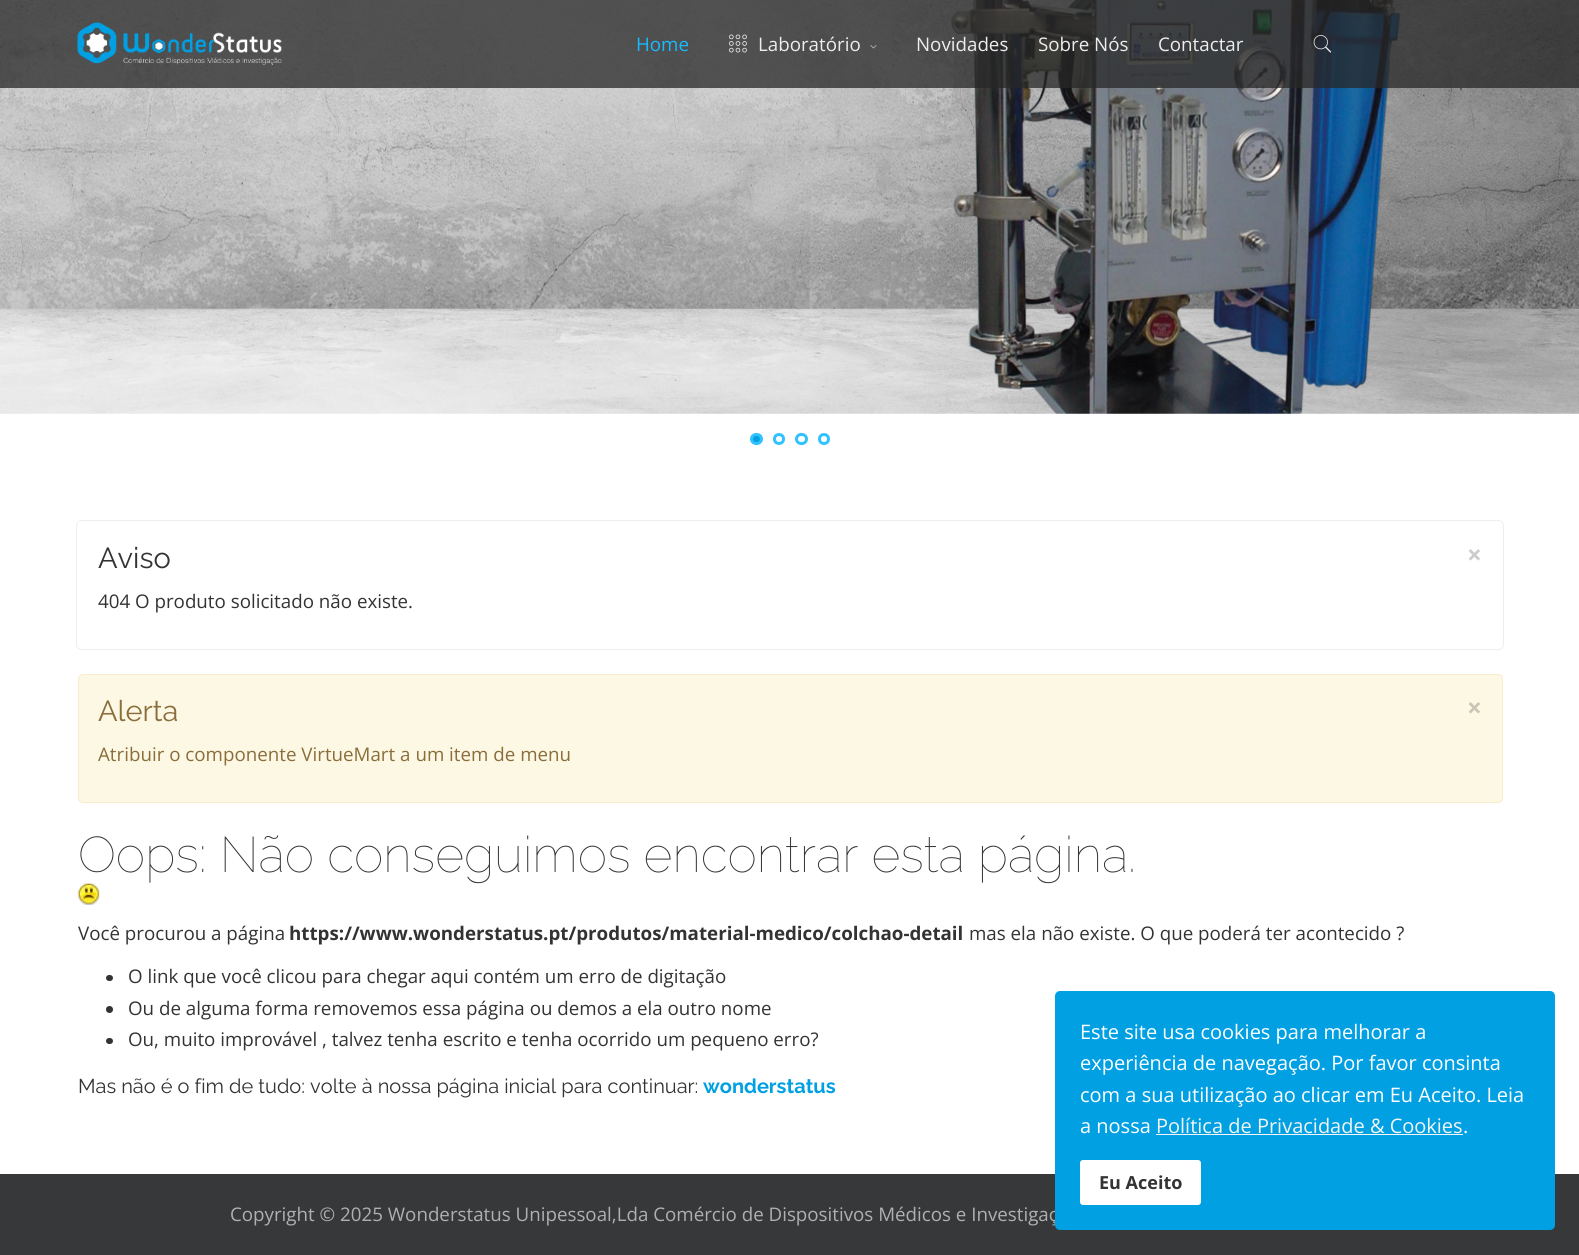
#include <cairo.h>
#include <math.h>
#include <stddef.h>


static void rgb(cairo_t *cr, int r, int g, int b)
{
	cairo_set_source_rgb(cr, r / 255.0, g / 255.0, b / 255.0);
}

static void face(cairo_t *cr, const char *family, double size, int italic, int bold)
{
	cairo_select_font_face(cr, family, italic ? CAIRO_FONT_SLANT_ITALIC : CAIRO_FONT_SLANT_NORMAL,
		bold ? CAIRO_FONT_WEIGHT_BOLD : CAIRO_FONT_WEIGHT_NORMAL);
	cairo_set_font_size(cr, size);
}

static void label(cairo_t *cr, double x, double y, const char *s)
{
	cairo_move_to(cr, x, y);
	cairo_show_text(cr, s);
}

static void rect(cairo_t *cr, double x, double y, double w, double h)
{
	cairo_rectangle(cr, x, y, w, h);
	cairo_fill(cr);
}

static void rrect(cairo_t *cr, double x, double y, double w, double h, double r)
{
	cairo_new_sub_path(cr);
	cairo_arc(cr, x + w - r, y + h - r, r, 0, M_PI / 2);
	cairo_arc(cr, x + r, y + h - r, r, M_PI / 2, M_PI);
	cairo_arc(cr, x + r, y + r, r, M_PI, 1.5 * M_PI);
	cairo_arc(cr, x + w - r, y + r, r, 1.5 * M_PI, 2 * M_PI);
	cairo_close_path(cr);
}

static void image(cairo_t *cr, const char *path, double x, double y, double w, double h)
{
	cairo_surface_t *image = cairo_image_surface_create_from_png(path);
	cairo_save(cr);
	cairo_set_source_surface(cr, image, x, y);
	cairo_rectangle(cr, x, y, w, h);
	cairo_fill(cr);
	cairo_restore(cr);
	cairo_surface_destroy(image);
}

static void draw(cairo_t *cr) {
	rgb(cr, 255, 255, 255);
	cairo_paint(cr);
	image(cr, "image0.png", 0, 0, 1579, 414);
	rgb(cr, 0, 160, 227);
	rrect(cr, 751.5, 434.5, 10, 9, 4.5);
	cairo_fill_preserve(cr);
	rgb(cr, 49, 194, 255);
	cairo_set_line_width(cr, 3);
	cairo_stroke(cr);
	cairo_arc(cr, 779, 439, 4.5, 0, 2 * M_PI);
	cairo_stroke(cr);
	rrect(cr, 796.5, 434.5, 10, 9, 4.5);
	cairo_stroke(cr);
	cairo_arc(cr, 824, 439, 4.5, 0, 2 * M_PI);
	cairo_stroke(cr);
	cairo_set_source_rgba(cr, 0.153, 0.153, 0.153, 0.75);
	rect(cr, 0, 0, 1579, 88);
	image(cr, "image1.png", 77, 22, 205, 44);
	face(cr, "Open Sans", 18.75, 0, 0);
	rgb(cr, 23, 187, 255);
	label(cr, 636, 51, "Home");
	image(cr, "image2.png", 729, 34, 18, 19);
	rgb(cr, 237, 237, 237);
	label(cr, 758, 51, "Laboratório");
	image(cr, "image3.png", 870, 45, 7, 4);
	label(cr, 916, 51, "Novidades");
	label(cr, 1038, 51, "Sobre Nós");
	label(cr, 1158, 51, "Contactar");
	image(cr, "image4.png", 1313, 35, 19, 18);
	rrect(cr, 76.5, 520.5, 1427, 129, 5.5);
	cairo_set_source_rgba(cr, 0.333, 0.333, 0.333, 0.1);
	cairo_set_line_width(cr, 1);
	cairo_stroke(cr);
	face(cr, "Raleway", 29, 0, 0);
	rgb(cr, 51, 51, 51);
	label(cr, 98, 568, "Aviso");
	face(cr, "Open Sans", 26, 0, 1);
	rgb(cr, 204, 204, 204);
	label(cr, 1467, 564, "×");
	face(cr, "Open Sans", 18.75, 0, 0);
	rgb(cr, 51, 51, 51);
	label(cr, 98, 608, "404 O produto solicitado não existe.");
	rgb(cr, 252, 248, 227);
	rrect(cr, 78.5, 674.5, 1424, 128, 4.5);
	cairo_fill_preserve(cr);
	rgb(cr, 250, 235, 204);
	cairo_stroke(cr);
	face(cr, "Raleway", 29, 0, 0);
	rgb(cr, 138, 109, 59);
	label(cr, 98, 721, "Alerta");
	face(cr, "Open Sans", 26, 0, 1);
	rgb(cr, 202, 198, 182);
	label(cr, 1467, 717, "×");
	face(cr, "Open Sans", 18.75, 0, 0);
	rgb(cr, 138, 109, 59);
	label(cr, 98, 761, "Atribuir o componente VirtueMart a um item de menu");
	face(cr, "Raleway Thin", 50, 0, 0);
	rgb(cr, 51, 51, 51);
	label(cr, 78, 872, "Oops: Não conseguimos encontrar esta página.");
	image(cr, "image5.png", 77, 883, 23, 22);
	face(cr, "Open Sans", 18.75, 0, 0);
	label(cr, 78, 940, "Você procurou a página");
	face(cr, "Open Sans", 18.75, 0, 1);
	label(cr, 289, 940, "https://www.wonderstatus.pt/produtos/material-medico/colchao-detail");
	face(cr, "Open Sans", 18.75, 0, 0);
	label(cr, 969, 940, "mas ela não existe. O que poderá ter acontecido ?");
	rrect(cr, 106, 975, 7, 6, 3);
	cairo_fill(cr);
	label(cr, 128, 983, "O link que você clicou para chegar aqui contém um erro de digitação");
	cairo_new_path(cr);
	cairo_arc(cr, 109.5, 1009.5, 3.5, 0, 2 * M_PI);
	cairo_fill(cr);
	label(cr, 128, 1015, "Ou de alguma forma removemos essa página ou demos a ela outro nome");
	rrect(cr, 106, 1038, 7, 6, 3);
	cairo_fill(cr);
	label(cr, 128, 1046, "Ou, muito improvável , talvez tenha escrito e tenha ocorrido um pequeno erro?");
	face(cr, "Raleway", 20, 0, 0);
	label(cr, 78, 1093, "Mas não é o fim de tudo: volte à nossa página inicial para continuar:");
	face(cr, "Raleway", 20, 0, 1);
	rgb(cr, 0, 160, 227);
	label(cr, 703, 1093, "wonderstatus");
	rgb(cr, 54, 56, 57);
	rect(cr, 0, 1174, 1579, 81);
	face(cr, "Open Sans", 18.75, 0, 0);
	rgb(cr, 176, 176, 176);
	label(cr, 230, 1221, "Copyright © 2025 Wonderstatus Unipessoal,Lda Comércio de Dispositivos Médicos e Investigaç");
	rgb(cr, 0, 160, 227);
	rrect(cr, 1055, 991, 500, 239, 5);
	cairo_fill(cr);
	face(cr, "Open Sans", 20, 0, 0);
	rgb(cr, 255, 255, 255);
	label(cr, 1080, 1039, "Este site usa cookies para melhorar a");
	label(cr, 1080, 1070, "experiência de navegação. Por favor consinta");
	label(cr, 1080, 1102, "com a sua utilização ao clicar em Eu Aceito. Leia");
	label(cr, 1080, 1133, "a nossa");
	rgb(cr, 245, 245, 245);
	label(cr, 1156, 1133, "Política de Privacidade & Cookies");
	rect(cr, 1156, 1134, 307, 1);
	rgb(cr, 255, 255, 255);
	label(cr, 1463, 1133, ".");
	rrect(cr, 1080, 1160, 121, 45, 3);
	cairo_fill(cr);
	face(cr, "Open Sans", 18, 0, 1);
	rgb(cr, 51, 51, 51);
	label(cr, 1099, 1189, "Eu Aceito");
}

int main(void) {
	cairo_surface_t *surface = cairo_image_surface_create(CAIRO_FORMAT_RGB24, 1579, 1255);
	cairo_t *cr = cairo_create(surface);
	cairo_font_options_t *options = cairo_font_options_create();
	cairo_font_options_set_hint_metrics(options, CAIRO_HINT_METRICS_OFF);
	cairo_font_options_set_hint_style(options, CAIRO_HINT_STYLE_NONE);
	cairo_set_font_options(cr, options);
	cairo_set_miter_limit(cr, 4);
	draw(cr);
	cairo_surface_write_to_png(surface, "render.png");
	cairo_font_options_destroy(options);
	cairo_destroy(cr);
	cairo_surface_destroy(surface);
	return 0;
}
